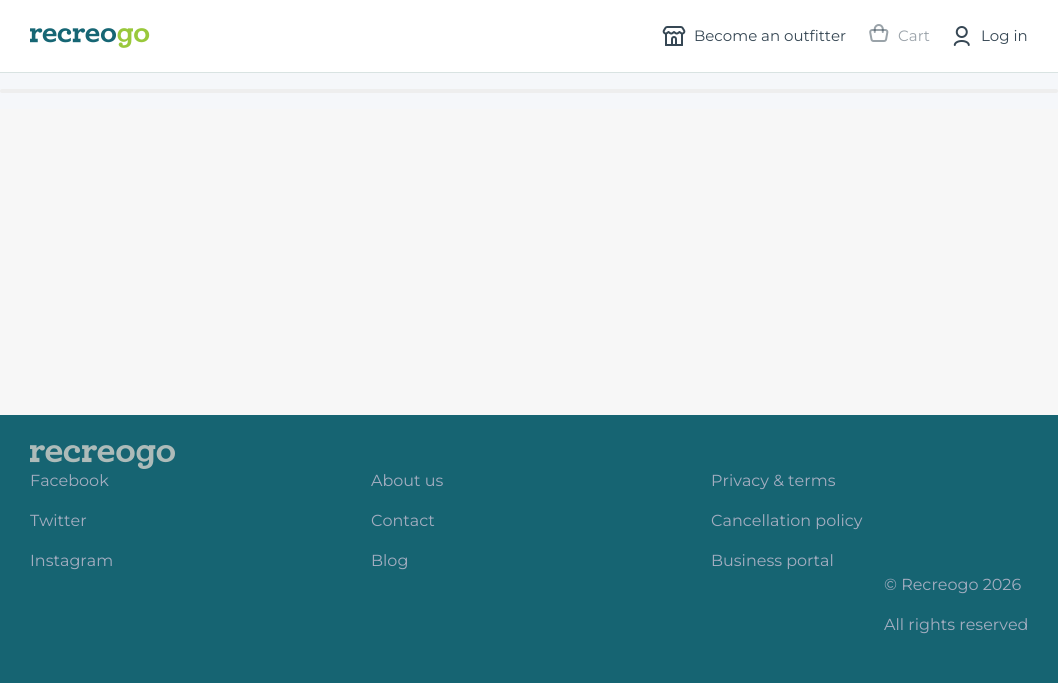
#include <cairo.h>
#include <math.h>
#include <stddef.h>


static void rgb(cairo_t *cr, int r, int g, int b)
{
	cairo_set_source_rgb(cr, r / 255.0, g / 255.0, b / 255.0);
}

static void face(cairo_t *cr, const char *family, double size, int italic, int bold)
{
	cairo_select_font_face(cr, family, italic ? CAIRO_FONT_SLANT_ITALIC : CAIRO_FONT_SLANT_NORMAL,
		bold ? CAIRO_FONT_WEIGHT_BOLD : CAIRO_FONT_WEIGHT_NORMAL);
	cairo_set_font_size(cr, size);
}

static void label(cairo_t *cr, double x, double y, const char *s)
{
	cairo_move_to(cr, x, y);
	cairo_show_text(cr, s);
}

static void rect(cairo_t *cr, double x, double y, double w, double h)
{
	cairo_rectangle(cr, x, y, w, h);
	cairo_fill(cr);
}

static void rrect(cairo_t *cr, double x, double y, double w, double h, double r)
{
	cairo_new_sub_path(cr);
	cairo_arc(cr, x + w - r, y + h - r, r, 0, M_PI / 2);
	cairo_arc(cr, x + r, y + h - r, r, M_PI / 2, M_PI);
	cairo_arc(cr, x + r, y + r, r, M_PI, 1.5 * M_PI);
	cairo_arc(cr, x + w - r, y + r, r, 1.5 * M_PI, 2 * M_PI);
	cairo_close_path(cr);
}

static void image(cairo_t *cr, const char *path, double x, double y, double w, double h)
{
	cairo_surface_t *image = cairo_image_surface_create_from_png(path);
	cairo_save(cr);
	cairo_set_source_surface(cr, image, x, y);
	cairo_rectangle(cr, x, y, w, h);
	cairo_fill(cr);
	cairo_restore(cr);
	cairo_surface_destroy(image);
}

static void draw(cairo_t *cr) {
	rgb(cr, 247, 247, 247);
	cairo_paint(cr);
	rgb(cr, 255, 255, 255);
	rect(cr, 0, 0, 1058, 72);
	rgb(cr, 217, 227, 226);
	rect(cr, 0, 72, 1058, 1);
	image(cr, "image0.png", 30, 28, 120, 20);
	image(cr, "image1.png", 662, 26, 24, 20);
	face(cr, "Montserrat Thin", 15, 0, 0);
	rgb(cr, 54, 71, 84);
	label(cr, 694, 41, "Become an outfitter");
	image(cr, "image2.png", 869, 24, 20, 18);
	rgb(cr, 155, 163, 170);
	label(cr, 898, 41, "Cart");
	image(cr, "image3.png", 953, 26, 17, 20);
	rgb(cr, 54, 71, 84);
	label(cr, 981, 41, "Log in");
	rgb(cr, 245, 247, 250);
	rect(cr, 0, 73, 1058, 36);
	rgb(cr, 238, 238, 238);
	rrect(cr, 0, 89, 1058, 4, 2);
	cairo_fill(cr);
	rgb(cr, 22, 100, 114);
	rect(cr, 0, 415, 1058, 268);
	image(cr, "image4.png", 30, 445, 145, 24);
	face(cr, "Montserrat Thin", 16, 0, 0);
	rgb(cr, 163, 173, 192);
	label(cr, 30, 486, "Facebook");
	label(cr, 30, 526, "Twitter");
	label(cr, 30, 566, "Instagram");
	label(cr, 371, 486, "About us");
	label(cr, 371, 526, "Contact");
	label(cr, 371, 566, "Blog");
	label(cr, 711, 486, "Privacy & terms");
	label(cr, 711, 526, "Cancellation policy");
	label(cr, 711, 566, "Business portal");
	label(cr, 884, 590, "© Recreogo 2026");
	label(cr, 884, 630, "All rights reserved");
}

int main(void) {
	cairo_surface_t *surface = cairo_image_surface_create(CAIRO_FORMAT_RGB24, 1058, 683);
	cairo_t *cr = cairo_create(surface);
	cairo_font_options_t *options = cairo_font_options_create();
	cairo_font_options_set_hint_metrics(options, CAIRO_HINT_METRICS_OFF);
	cairo_font_options_set_hint_style(options, CAIRO_HINT_STYLE_NONE);
	cairo_set_font_options(cr, options);
	cairo_set_miter_limit(cr, 4);
	draw(cr);
	cairo_surface_write_to_png(surface, "render.png");
	cairo_font_options_destroy(options);
	cairo_destroy(cr);
	cairo_surface_destroy(surface);
	return 0;
}
